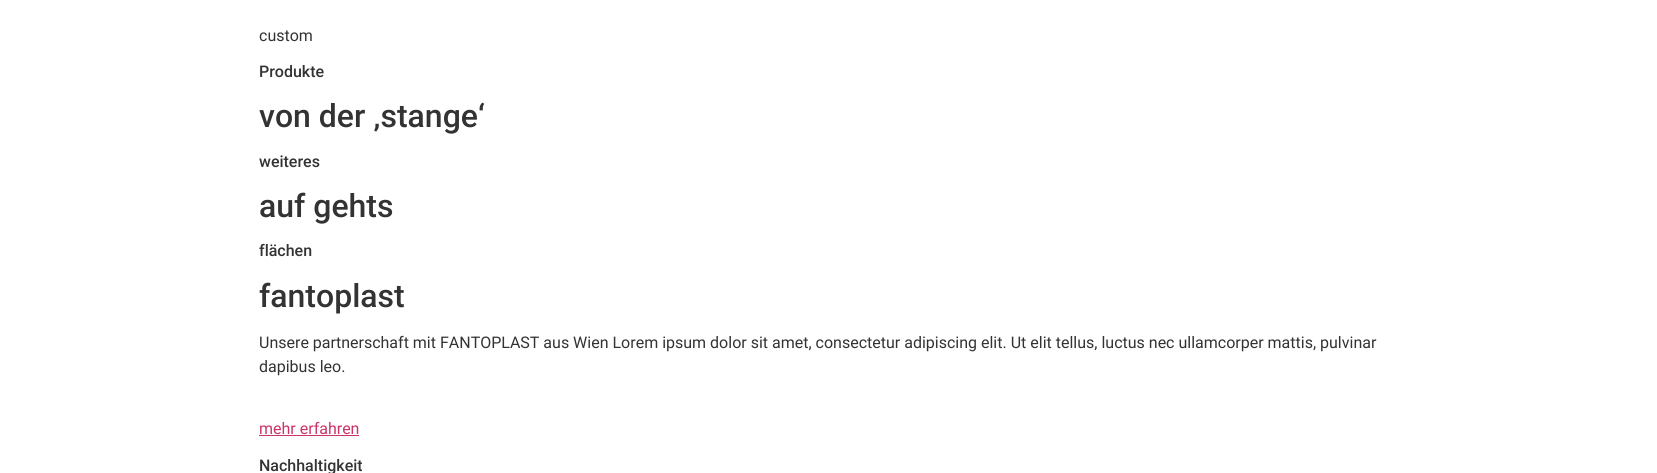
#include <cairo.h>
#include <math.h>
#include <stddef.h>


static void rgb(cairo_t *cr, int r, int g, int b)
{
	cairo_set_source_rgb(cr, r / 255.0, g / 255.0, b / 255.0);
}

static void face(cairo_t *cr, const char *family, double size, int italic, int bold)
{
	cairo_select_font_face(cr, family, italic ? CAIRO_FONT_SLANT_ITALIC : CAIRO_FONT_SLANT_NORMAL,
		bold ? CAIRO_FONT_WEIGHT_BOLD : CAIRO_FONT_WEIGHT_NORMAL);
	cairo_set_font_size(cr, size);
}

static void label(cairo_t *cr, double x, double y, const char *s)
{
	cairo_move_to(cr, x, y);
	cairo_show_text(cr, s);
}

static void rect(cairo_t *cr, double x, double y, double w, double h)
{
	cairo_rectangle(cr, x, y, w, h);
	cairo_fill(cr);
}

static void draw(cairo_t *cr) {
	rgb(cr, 255, 255, 255);
	cairo_paint(cr);
	face(cr, "Roboto", 16, 0, 0);
	rgb(cr, 51, 51, 51);
	label(cr, 259, 41, "custom");
	face(cr, "Roboto Medium", 16, 0, 0);
	label(cr, 259, 77, "Produkte");
	face(cr, "Roboto Medium", 32, 0, 0);
	label(cr, 259, 127, "von der ‚stange‘");
	face(cr, "Roboto Medium", 16, 0, 0);
	label(cr, 259, 167, "weiteres");
	face(cr, "Roboto Medium", 32, 0, 0);
	label(cr, 259, 217, "auf gehts");
	face(cr, "Roboto Medium", 16, 0, 0);
	label(cr, 259, 256, "flächen");
	face(cr, "Roboto Medium", 32, 0, 0);
	label(cr, 259, 307, "fantoplast");
	face(cr, "Roboto", 16, 0, 0);
	label(cr, 259, 348, "Unsere partnerschaft mit FANTOPLAST aus Wien Lorem ipsum dolor sit amet, consectetur adipiscing elit. Ut elit tellus, luctus nec ullamcorper mattis, pulvinar");
	label(cr, 259, 372, "dapibus leo.");
	rgb(cr, 204, 51, 102);
	label(cr, 259, 434, "mehr erfahren");
	rect(cr, 259, 435, 100, 1);
	face(cr, "Roboto Medium", 16, 0, 0);
	rgb(cr, 51, 51, 51);
	label(cr, 259, 471, "Nachhaltigkeit");
}

int main(void) {
	cairo_surface_t *surface = cairo_image_surface_create(CAIRO_FORMAT_RGB24, 1657, 473);
	cairo_t *cr = cairo_create(surface);
	cairo_font_options_t *options = cairo_font_options_create();
	cairo_font_options_set_hint_metrics(options, CAIRO_HINT_METRICS_OFF);
	cairo_font_options_set_hint_style(options, CAIRO_HINT_STYLE_NONE);
	cairo_set_font_options(cr, options);
	cairo_set_miter_limit(cr, 4);
	draw(cr);
	cairo_surface_write_to_png(surface, "render.png");
	cairo_font_options_destroy(options);
	cairo_destroy(cr);
	cairo_surface_destroy(surface);
	return 0;
}
